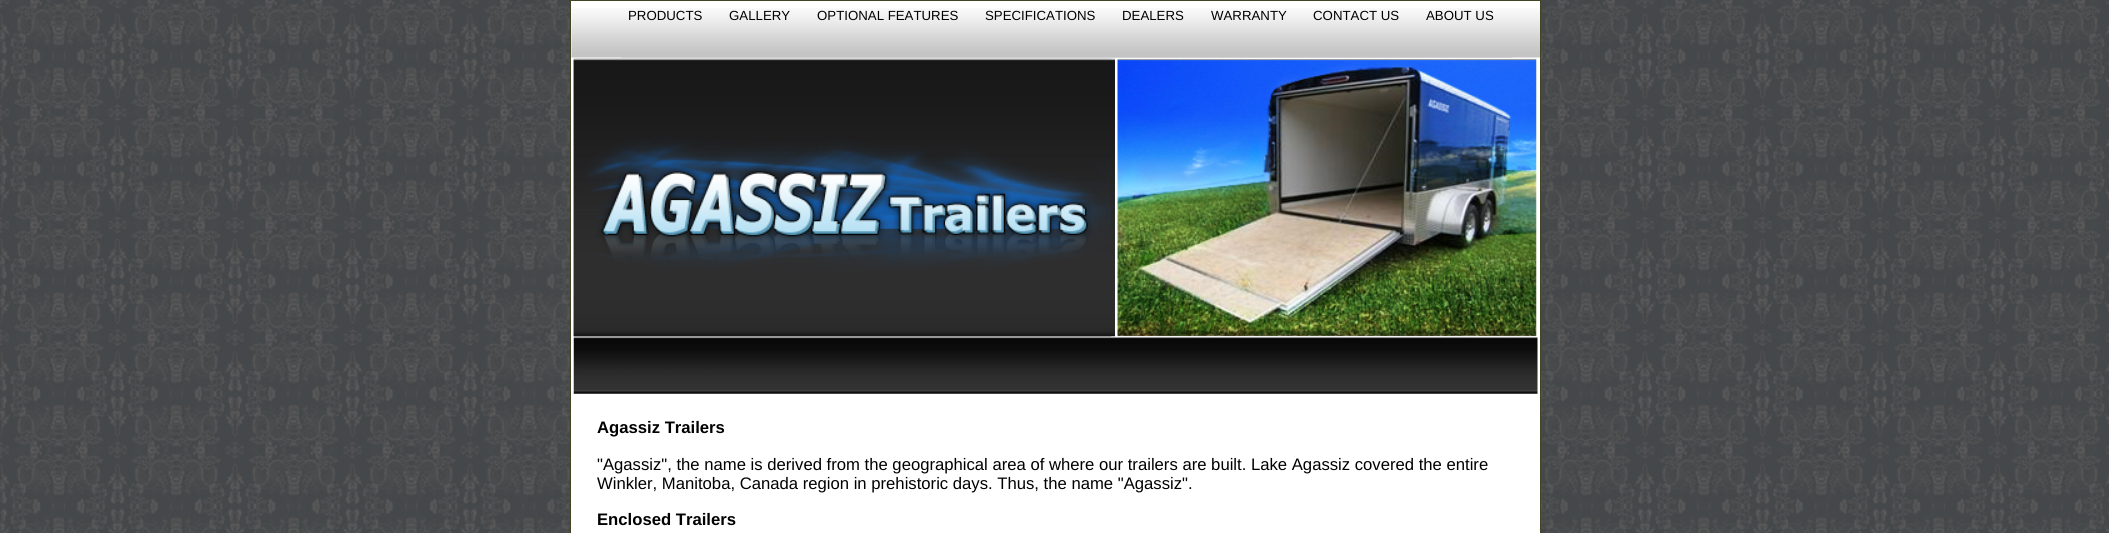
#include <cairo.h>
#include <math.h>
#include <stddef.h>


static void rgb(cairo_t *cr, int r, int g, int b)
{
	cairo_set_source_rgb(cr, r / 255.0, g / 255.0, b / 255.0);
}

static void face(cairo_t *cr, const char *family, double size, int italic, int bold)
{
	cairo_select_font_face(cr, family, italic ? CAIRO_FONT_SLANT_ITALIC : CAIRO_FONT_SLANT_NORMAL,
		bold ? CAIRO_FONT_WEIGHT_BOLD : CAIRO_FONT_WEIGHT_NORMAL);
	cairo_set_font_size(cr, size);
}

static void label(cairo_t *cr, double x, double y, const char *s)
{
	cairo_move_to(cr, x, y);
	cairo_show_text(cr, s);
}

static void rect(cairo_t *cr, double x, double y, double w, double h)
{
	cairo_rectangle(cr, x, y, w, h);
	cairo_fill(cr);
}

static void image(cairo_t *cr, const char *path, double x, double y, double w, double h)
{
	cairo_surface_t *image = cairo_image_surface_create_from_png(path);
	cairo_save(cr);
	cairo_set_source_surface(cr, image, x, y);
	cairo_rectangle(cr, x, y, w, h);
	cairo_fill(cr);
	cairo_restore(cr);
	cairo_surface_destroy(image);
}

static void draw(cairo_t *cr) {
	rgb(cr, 255, 255, 255);
	cairo_paint(cr);
	image(cr, "image0.png", 0, 0, 2109, 533);
	rgb(cr, 255, 255, 255);
	cairo_rectangle(cr, 570.5, 0.5, 970, 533);
	cairo_fill_preserve(cr);
	rgb(cr, 66, 68, 36);
	cairo_set_line_width(cr, 1);
	cairo_stroke(cr);
	image(cr, "image1.png", 571, 8, 969, 50);
	image(cr, "image2.png", 621, 57, 100, 1);
	face(cr, "Liberation Sans", 13.25, 0, 0);
	rgb(cr, 0, 0, 0);
	label(cr, 628, 20, "PRODUCTS");
	image(cr, "image3.png", 721, 57, 88, 1);
	label(cr, 729, 20, "GALLERY");
	image(cr, "image4.png", 809, 57, 169, 1);
	label(cr, 817, 20, "OPTIONAL FEATURES");
	image(cr, "image5.png", 977, 57, 138, 1);
	label(cr, 985, 20, "SPECIFICATIONS");
	image(cr, "image6.png", 1115, 57, 89, 1);
	label(cr, 1122, 20, "DEALERS");
	rgb(cr, 210, 210, 210);
	rect(cr, 1204, 57, 102, 1);
	rgb(cr, 0, 0, 0);
	label(cr, 1211, 20, "WARRANTY");
	image(cr, "image7.png", 1306, 57, 113, 1);
	label(cr, 1313, 20, "CONTACT US");
	image(cr, "image8.png", 1419, 57, 94, 1);
	label(cr, 1426, 20, "ABOUT US");
	image(cr, "image9.png", 573, 58, 542, 279);
	image(cr, "image10.png", 573, 58, 539, 279);
	image(cr, "image11.png", 1117, 58, 420, 279);
	image(cr, "image12.png", 573, 337, 965, 57);
	face(cr, "Liberation Sans", 16.67, 0, 1);
	label(cr, 597, 433, "Agassiz Trailers");
	face(cr, "Liberation Sans", 16.67, 0, 0);
	label(cr, 597, 470, "\"Agassiz\", the name is derived from the geographical area of where our trailers are built. Lake Agassiz covered the entire");
	label(cr, 597, 489, "Winkler, Manitoba, Canada region in prehistoric days. Thus, the name \"Agassiz\".");
	face(cr, "Liberation Sans", 16.67, 0, 1);
	label(cr, 597, 525, "Enclosed Trailers");
}

int main(void) {
	cairo_surface_t *surface = cairo_image_surface_create(CAIRO_FORMAT_RGB24, 2109, 533);
	cairo_t *cr = cairo_create(surface);
	cairo_font_options_t *options = cairo_font_options_create();
	cairo_font_options_set_hint_metrics(options, CAIRO_HINT_METRICS_OFF);
	cairo_font_options_set_hint_style(options, CAIRO_HINT_STYLE_NONE);
	cairo_set_font_options(cr, options);
	cairo_set_miter_limit(cr, 4);
	draw(cr);
	cairo_surface_write_to_png(surface, "render.png");
	cairo_font_options_destroy(options);
	cairo_destroy(cr);
	cairo_surface_destroy(surface);
	return 0;
}
